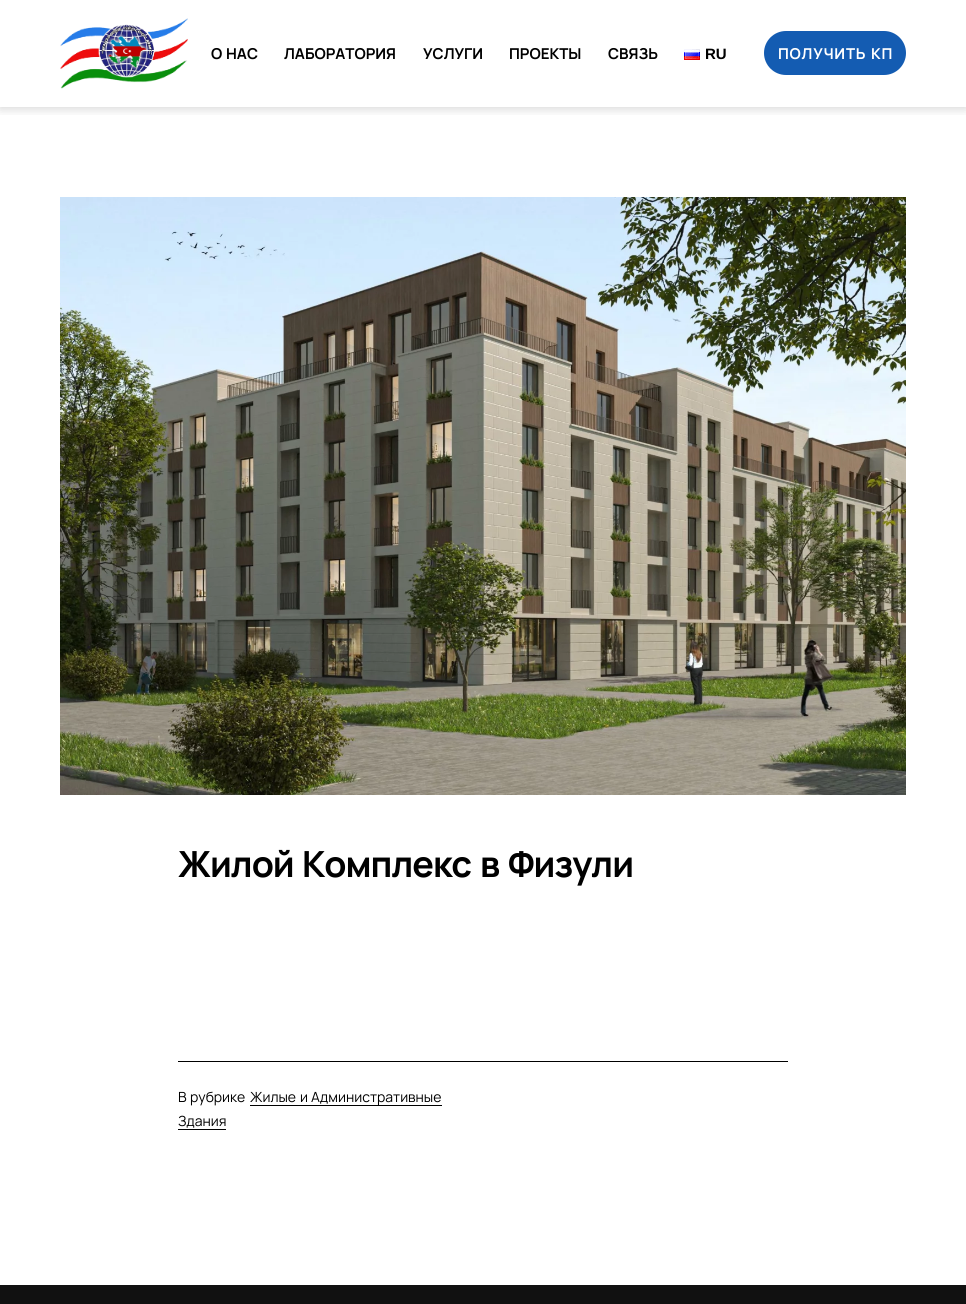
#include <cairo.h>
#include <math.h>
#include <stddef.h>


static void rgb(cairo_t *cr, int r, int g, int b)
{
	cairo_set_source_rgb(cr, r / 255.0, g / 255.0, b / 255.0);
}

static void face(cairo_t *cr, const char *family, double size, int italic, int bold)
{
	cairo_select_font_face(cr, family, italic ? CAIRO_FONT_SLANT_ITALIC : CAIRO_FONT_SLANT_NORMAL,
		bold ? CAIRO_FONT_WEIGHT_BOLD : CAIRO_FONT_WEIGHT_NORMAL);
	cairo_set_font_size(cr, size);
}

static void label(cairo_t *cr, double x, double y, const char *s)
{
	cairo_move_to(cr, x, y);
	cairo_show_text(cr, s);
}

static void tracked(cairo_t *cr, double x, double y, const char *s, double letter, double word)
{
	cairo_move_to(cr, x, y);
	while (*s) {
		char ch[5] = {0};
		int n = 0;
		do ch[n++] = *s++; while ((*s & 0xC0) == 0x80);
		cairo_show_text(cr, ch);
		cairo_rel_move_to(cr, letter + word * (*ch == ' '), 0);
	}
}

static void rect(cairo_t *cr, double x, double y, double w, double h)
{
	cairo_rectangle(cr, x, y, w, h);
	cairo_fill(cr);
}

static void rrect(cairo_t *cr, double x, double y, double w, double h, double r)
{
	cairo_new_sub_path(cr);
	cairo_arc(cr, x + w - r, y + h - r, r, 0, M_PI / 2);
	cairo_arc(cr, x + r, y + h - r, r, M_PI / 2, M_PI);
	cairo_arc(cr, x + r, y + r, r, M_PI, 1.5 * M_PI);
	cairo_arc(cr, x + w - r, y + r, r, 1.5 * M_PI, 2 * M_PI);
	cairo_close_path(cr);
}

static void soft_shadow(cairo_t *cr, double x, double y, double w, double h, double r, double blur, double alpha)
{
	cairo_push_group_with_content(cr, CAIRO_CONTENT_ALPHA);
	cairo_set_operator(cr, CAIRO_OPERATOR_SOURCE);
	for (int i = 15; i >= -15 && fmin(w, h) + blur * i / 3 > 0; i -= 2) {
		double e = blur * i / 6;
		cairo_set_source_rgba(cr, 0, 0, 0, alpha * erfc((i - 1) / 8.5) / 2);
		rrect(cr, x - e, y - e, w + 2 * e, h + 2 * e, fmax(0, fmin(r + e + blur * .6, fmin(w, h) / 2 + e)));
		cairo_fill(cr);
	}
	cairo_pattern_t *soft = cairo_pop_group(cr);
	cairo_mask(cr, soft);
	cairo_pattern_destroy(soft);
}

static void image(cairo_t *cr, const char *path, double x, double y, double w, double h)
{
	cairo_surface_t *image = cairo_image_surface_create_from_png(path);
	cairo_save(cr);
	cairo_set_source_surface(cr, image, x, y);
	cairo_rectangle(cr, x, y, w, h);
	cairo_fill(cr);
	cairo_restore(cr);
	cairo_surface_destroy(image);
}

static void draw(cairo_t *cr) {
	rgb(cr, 255, 255, 255);
	cairo_paint(cr);
	cairo_save(cr);
	cairo_rectangle(cr, 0, 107, 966, 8);
	cairo_clip(cr);
	rgb(cr, 0, 0, 0);
	soft_shadow(cr, 0, 2, 966, 107, 0, 5, 0.16);
	cairo_restore(cr);
	image(cr, "image0.png", 60, 18, 128, 71);
	face(cr, "Manrope", 15, 0, 1);
	rgb(cr, 0, 0, 0);
	label(cr, 211, 59, "О");
	label(cr, 226, 59, "НАС");
	label(cr, 284, 59, "ЛАБОРАТОРИЯ");
	label(cr, 423, 59, "УСЛУГИ");
	label(cr, 509, 59, "ПРОЕКТЫ");
	label(cr, 608, 59, "СВЯЗЬ");
	image(cr, "image1.png", 684, 49, 16, 11);
	face(cr, "Liberation Sans", 15, 0, 1);
	label(cr, 705, 59, "RU");
	rgb(cr, 20, 92, 178);
	rrect(cr, 764, 31, 142, 44, 22);
	cairo_fill(cr);
	face(cr, "Manrope", 15, 0, 1);
	rgb(cr, 255, 255, 255);
	tracked(cr, 778, 59, "ПОЛУЧИТЬ", 0.75, 0);
	tracked(cr, 871, 59, "КП", 0.75, 0);
	image(cr, "image2.png", 60, 197, 846, 598);
	face(cr, "Manrope", 36, 0, 1);
	rgb(cr, 0, 0, 0);
	tracked(cr, 178, 877, "Жилой", -1, 0);
	tracked(cr, 302, 877, "Комплекс", -1, 0);
	tracked(cr, 480, 877, "в", -1, 0);
	tracked(cr, 508, 877, "Физули", -1, 0);
	rect(cr, 178, 1061, 610, 1);
	face(cr, "Manrope", 14, 0, 0);
	label(cr, 178, 1102, "В");
	label(cr, 190, 1102, "рубрике");
	label(cr, 250, 1102, "Жилые");
	label(cr, 300, 1102, "и");
	rect(cr, 250, 1105, 192, 1);
	label(cr, 311, 1102, "Административные");
	label(cr, 178, 1126, "Здания");
	rect(cr, 178, 1129, 48, 1);
	rgb(cr, 17, 17, 17);
	rect(cr, 0, 1285, 966, 19);
}

int main(void) {
	cairo_surface_t *surface = cairo_image_surface_create(CAIRO_FORMAT_RGB24, 966, 1304);
	cairo_t *cr = cairo_create(surface);
	cairo_font_options_t *options = cairo_font_options_create();
	cairo_font_options_set_hint_metrics(options, CAIRO_HINT_METRICS_OFF);
	cairo_font_options_set_hint_style(options, CAIRO_HINT_STYLE_NONE);
	cairo_set_font_options(cr, options);
	cairo_set_miter_limit(cr, 4);
	draw(cr);
	cairo_surface_write_to_png(surface, "render.png");
	cairo_font_options_destroy(options);
	cairo_destroy(cr);
	cairo_surface_destroy(surface);
	return 0;
}
